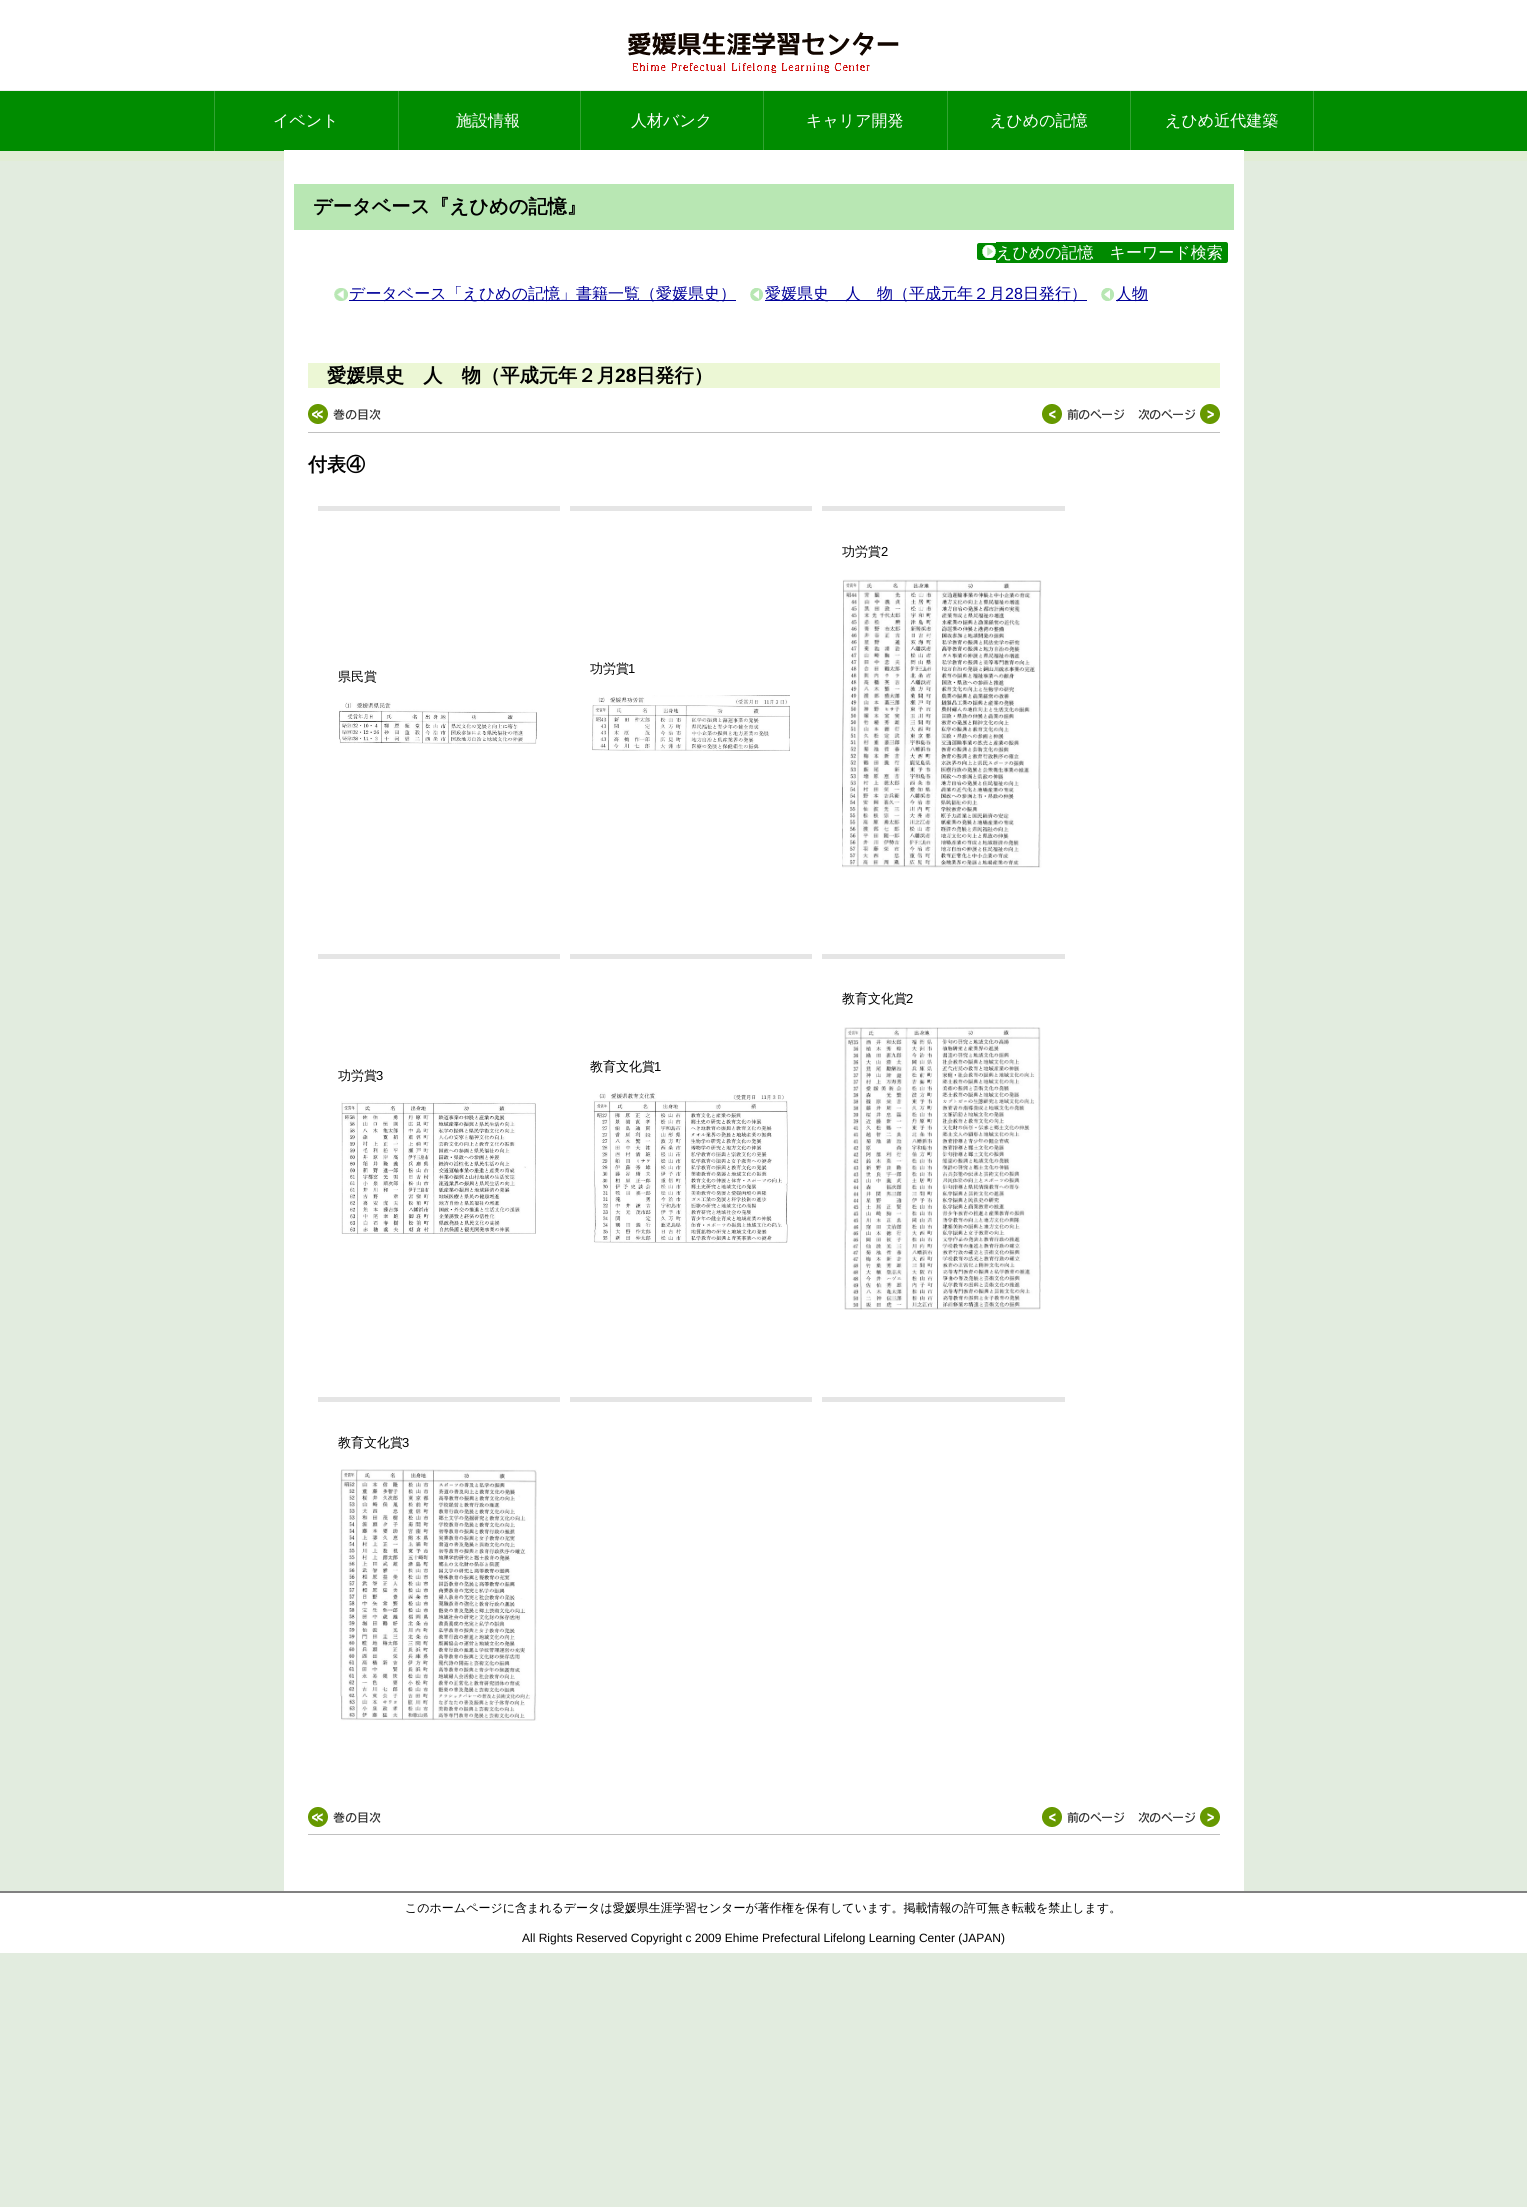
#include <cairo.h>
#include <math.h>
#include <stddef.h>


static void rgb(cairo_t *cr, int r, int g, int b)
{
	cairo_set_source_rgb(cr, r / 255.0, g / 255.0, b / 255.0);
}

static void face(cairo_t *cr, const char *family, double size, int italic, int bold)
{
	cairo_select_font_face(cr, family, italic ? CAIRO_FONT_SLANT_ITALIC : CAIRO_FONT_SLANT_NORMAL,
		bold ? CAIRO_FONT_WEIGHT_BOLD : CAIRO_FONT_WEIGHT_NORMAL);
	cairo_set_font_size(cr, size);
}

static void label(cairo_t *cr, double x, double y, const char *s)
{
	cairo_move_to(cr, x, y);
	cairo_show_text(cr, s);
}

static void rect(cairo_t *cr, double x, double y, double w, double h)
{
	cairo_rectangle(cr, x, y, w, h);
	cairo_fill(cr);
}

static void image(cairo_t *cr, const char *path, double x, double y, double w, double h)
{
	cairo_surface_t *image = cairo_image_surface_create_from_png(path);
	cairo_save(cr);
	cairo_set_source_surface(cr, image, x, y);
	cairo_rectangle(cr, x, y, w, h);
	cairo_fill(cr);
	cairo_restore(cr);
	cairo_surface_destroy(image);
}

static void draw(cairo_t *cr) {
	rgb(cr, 226, 236, 223);
	cairo_paint(cr);
	rgb(cr, 255, 255, 255);
	rect(cr, 0, 0, 1527, 90);
	image(cr, "image0.png", 628, 32, 271, 41);
	rgb(cr, 0, 140, 0);
	rect(cr, 0, 91, 1527, 60);
	rgb(cr, 51, 163, 51);
	rect(cr, 1130, 91, 1, 60);
	rect(cr, 947, 91, 1, 60);
	rect(cr, 763, 91, 1, 60);
	rect(cr, 580, 91, 1, 60);
	rect(cr, 398, 91, 1, 60);
	rgb(cr, 238, 238, 238);
	rect(cr, 0, 90, 1527, 1);
	rgb(cr, 225, 237, 213);
	rect(cr, 0, 151, 1527, 10);
	rgb(cr, 51, 163, 51);
	rect(cr, 214, 91, 1, 60);
	face(cr, "WenQuanYi Zen Hei Medium", 16, 0, 0);
	rgb(cr, 255, 255, 255);
	label(cr, 273, 126, "イベント");
	label(cr, 456, 126, "施設情報");
	label(cr, 631, 126, "人材バンク");
	label(cr, 806, 126, "キャリア開発");
	label(cr, 990, 126, "えひめの記憶");
	rgb(cr, 51, 163, 51);
	rect(cr, 1313, 91, 1, 60);
	rgb(cr, 255, 255, 255);
	label(cr, 1165, 126, "えひめ近代建築");
	rect(cr, 284, 150, 960, 1741);
	rgb(cr, 184, 231, 179);
	rect(cr, 294, 184, 940, 46);
	face(cr, "WenQuanYi Zen Hei", 19.25, 0, 1);
	rgb(cr, 0, 0, 0);
	label(cr, 313, 213, "データベース『えひめの記憶』");
	rgb(cr, 0, 138, 0);
	cairo_new_path(cr);
	cairo_move_to(cr, 979, 243);
	cairo_line_to(cr, 996, 243);
	cairo_line_to(cr, 996, 260);
	cairo_line_to(cr, 979, 260);
	cairo_curve_to(cr, 978, 260, 977, 259, 977, 258);
	cairo_line_to(cr, 977, 245);
	cairo_curve_to(cr, 977, 244, 978, 243, 979, 243);
	cairo_close_path(cr);
	cairo_fill(cr);
	image(cr, "image1.png", 982, 245, 14, 13);
	cairo_new_path(cr);
	cairo_move_to(cr, 996, 242);
	cairo_line_to(cr, 1226, 242);
	cairo_curve_to(cr, 1227, 242, 1228, 243, 1228, 244);
	cairo_line_to(cr, 1228, 261);
	cairo_curve_to(cr, 1228, 262, 1227, 263, 1226, 263);
	cairo_line_to(cr, 996, 263);
	cairo_close_path(cr);
	cairo_fill(cr);
	face(cr, "WenQuanYi Zen Hei Medium", 16, 0, 0);
	rgb(cr, 255, 255, 255);
	label(cr, 996, 258, "えひめの記憶　キーワード検索");
	image(cr, "image2.png", 334, 288, 14, 13);
	rgb(cr, 0, 0, 153);
	rect(cr, 349, 300, 387, 1);
	label(cr, 349, 299, "データベース「えひめの記憶」書籍一覧（愛媛県史）");
	image(cr, "image3.png", 750, 288, 13, 13);
	rect(cr, 765, 300, 322, 1);
	label(cr, 765, 299, "愛媛県史　人　物（平成元年２月");
	face(cr, "Liberation Sans", 16, 0, 0);
	label(cr, 1005, 299, "28");
	face(cr, "WenQuanYi Zen Hei Medium", 16, 0, 0);
	label(cr, 1023, 299, "日発行）");
	image(cr, "image3.png", 1101, 288, 13, 13);
	rect(cr, 1116, 300, 32, 1);
	label(cr, 1116, 299, "人物");
	rgb(cr, 236, 247, 213);
	rect(cr, 308, 363, 912, 25);
	face(cr, "WenQuanYi Zen Hei", 19.25, 0, 1);
	rgb(cr, 0, 0, 0);
	label(cr, 327, 382, "愛媛県史　人　物（平成元年２月");
	face(cr, "Liberation Sans", 19.25, 0, 1);
	label(cr, 615, 382, "28");
	face(cr, "WenQuanYi Zen Hei", 19.25, 0, 1);
	label(cr, 636, 382, "日発行）");
	rgb(cr, 192, 192, 192);
	rect(cr, 308, 432, 912, 1);
	image(cr, "image4.png", 308, 404, 73, 20);
	image(cr, "image5.png", 1042, 404, 83, 20);
	image(cr, "image6.png", 1138, 404, 82, 20);
	face(cr, "WenQuanYi Zen Hei", 19, 0, 1);
	rgb(cr, 0, 0, 0);
	label(cr, 308, 471, "付表④");
	rgb(cr, 229, 229, 229);
	rect(cr, 822, 506, 243, 5);
	face(cr, "WenQuanYi Zen Hei Medium", 13, 0, 0);
	rgb(cr, 0, 0, 0);
	label(cr, 842, 556, "功労賞");
	face(cr, "Liberation Sans", 13, 0, 0);
	label(cr, 881, 556, "2");
	image(cr, "image7.png", 842, 579, 200, 289);
	rgb(cr, 229, 229, 229);
	rect(cr, 570, 506, 242, 5);
	face(cr, "WenQuanYi Zen Hei Medium", 13, 0, 0);
	rgb(cr, 0, 0, 0);
	label(cr, 590, 673, "功労賞");
	face(cr, "Liberation Sans", 13, 0, 0);
	label(cr, 628, 673, "1");
	image(cr, "image8.png", 592, 695, 198, 56);
	rgb(cr, 229, 229, 229);
	rect(cr, 318, 506, 242, 5);
	face(cr, "WenQuanYi Zen Hei Medium", 13, 0, 0);
	rgb(cr, 0, 0, 0);
	label(cr, 338, 681, "県民賞");
	image(cr, "image9.png", 339, 702, 198, 42);
	rgb(cr, 229, 229, 229);
	rect(cr, 822, 954, 243, 5);
	rgb(cr, 0, 0, 0);
	label(cr, 842, 1003, "教育文化賞");
	face(cr, "Liberation Sans", 13, 0, 0);
	label(cr, 906, 1003, "2");
	image(cr, "image10.png", 844, 1027, 197, 283);
	rgb(cr, 229, 229, 229);
	rect(cr, 570, 954, 242, 5);
	face(cr, "WenQuanYi Zen Hei Medium", 13, 0, 0);
	rgb(cr, 0, 0, 0);
	label(cr, 590, 1071, "教育文化賞");
	face(cr, "Liberation Sans", 13, 0, 0);
	label(cr, 654, 1071, "1");
	image(cr, "image11.png", 593, 1092, 195, 151);
	rgb(cr, 229, 229, 229);
	rect(cr, 318, 954, 242, 5);
	face(cr, "WenQuanYi Zen Hei Medium", 13, 0, 0);
	rgb(cr, 0, 0, 0);
	label(cr, 338, 1080, "功労賞");
	face(cr, "Liberation Sans", 13, 0, 0);
	label(cr, 376, 1080, "3");
	image(cr, "image12.png", 341, 1101, 195, 133);
	rgb(cr, 229, 229, 229);
	rect(cr, 570, 1397, 242, 5);
	rect(cr, 822, 1397, 243, 5);
	rect(cr, 318, 1397, 242, 5);
	face(cr, "WenQuanYi Zen Hei Medium", 13, 0, 0);
	rgb(cr, 0, 0, 0);
	label(cr, 338, 1447, "教育文化賞");
	face(cr, "Liberation Sans", 13, 0, 0);
	label(cr, 402, 1447, "3");
	image(cr, "image13.png", 340, 1469, 197, 252);
	rgb(cr, 192, 192, 192);
	rect(cr, 308, 1834, 912, 1);
	image(cr, "image4.png", 308, 1807, 73, 20);
	image(cr, "image5.png", 1042, 1807, 83, 20);
	image(cr, "image6.png", 1138, 1807, 82, 20);
	rgb(cr, 255, 255, 255);
	rect(cr, 0, 1893, 1527, 60);
	rgb(cr, 128, 128, 128);
	rect(cr, 0, 1891, 1527, 2);
	face(cr, "WenQuanYi Zen Hei Medium", 12, 0, 0);
	rgb(cr, 0, 0, 0);
	label(cr, 405, 1912, "このホームページに含まれるデータは愛媛県生涯学習センターが著作権を保有しています。掲載情報の許可無き転載を禁止します。");
	face(cr, "Liberation Sans", 12, 0, 0);
	label(cr, 522, 1942, "All Rights Reserved Copyright c 2009 Ehime Prefectural Lifelong Learning Center (JAPAN)");
}

int main(void) {
	cairo_surface_t *surface = cairo_image_surface_create(CAIRO_FORMAT_RGB24, 1527, 2207);
	cairo_t *cr = cairo_create(surface);
	cairo_font_options_t *options = cairo_font_options_create();
	cairo_font_options_set_hint_metrics(options, CAIRO_HINT_METRICS_OFF);
	cairo_font_options_set_hint_style(options, CAIRO_HINT_STYLE_NONE);
	cairo_set_font_options(cr, options);
	cairo_set_miter_limit(cr, 4);
	draw(cr);
	cairo_surface_write_to_png(surface, "render.png");
	cairo_font_options_destroy(options);
	cairo_destroy(cr);
	cairo_surface_destroy(surface);
	return 0;
}
